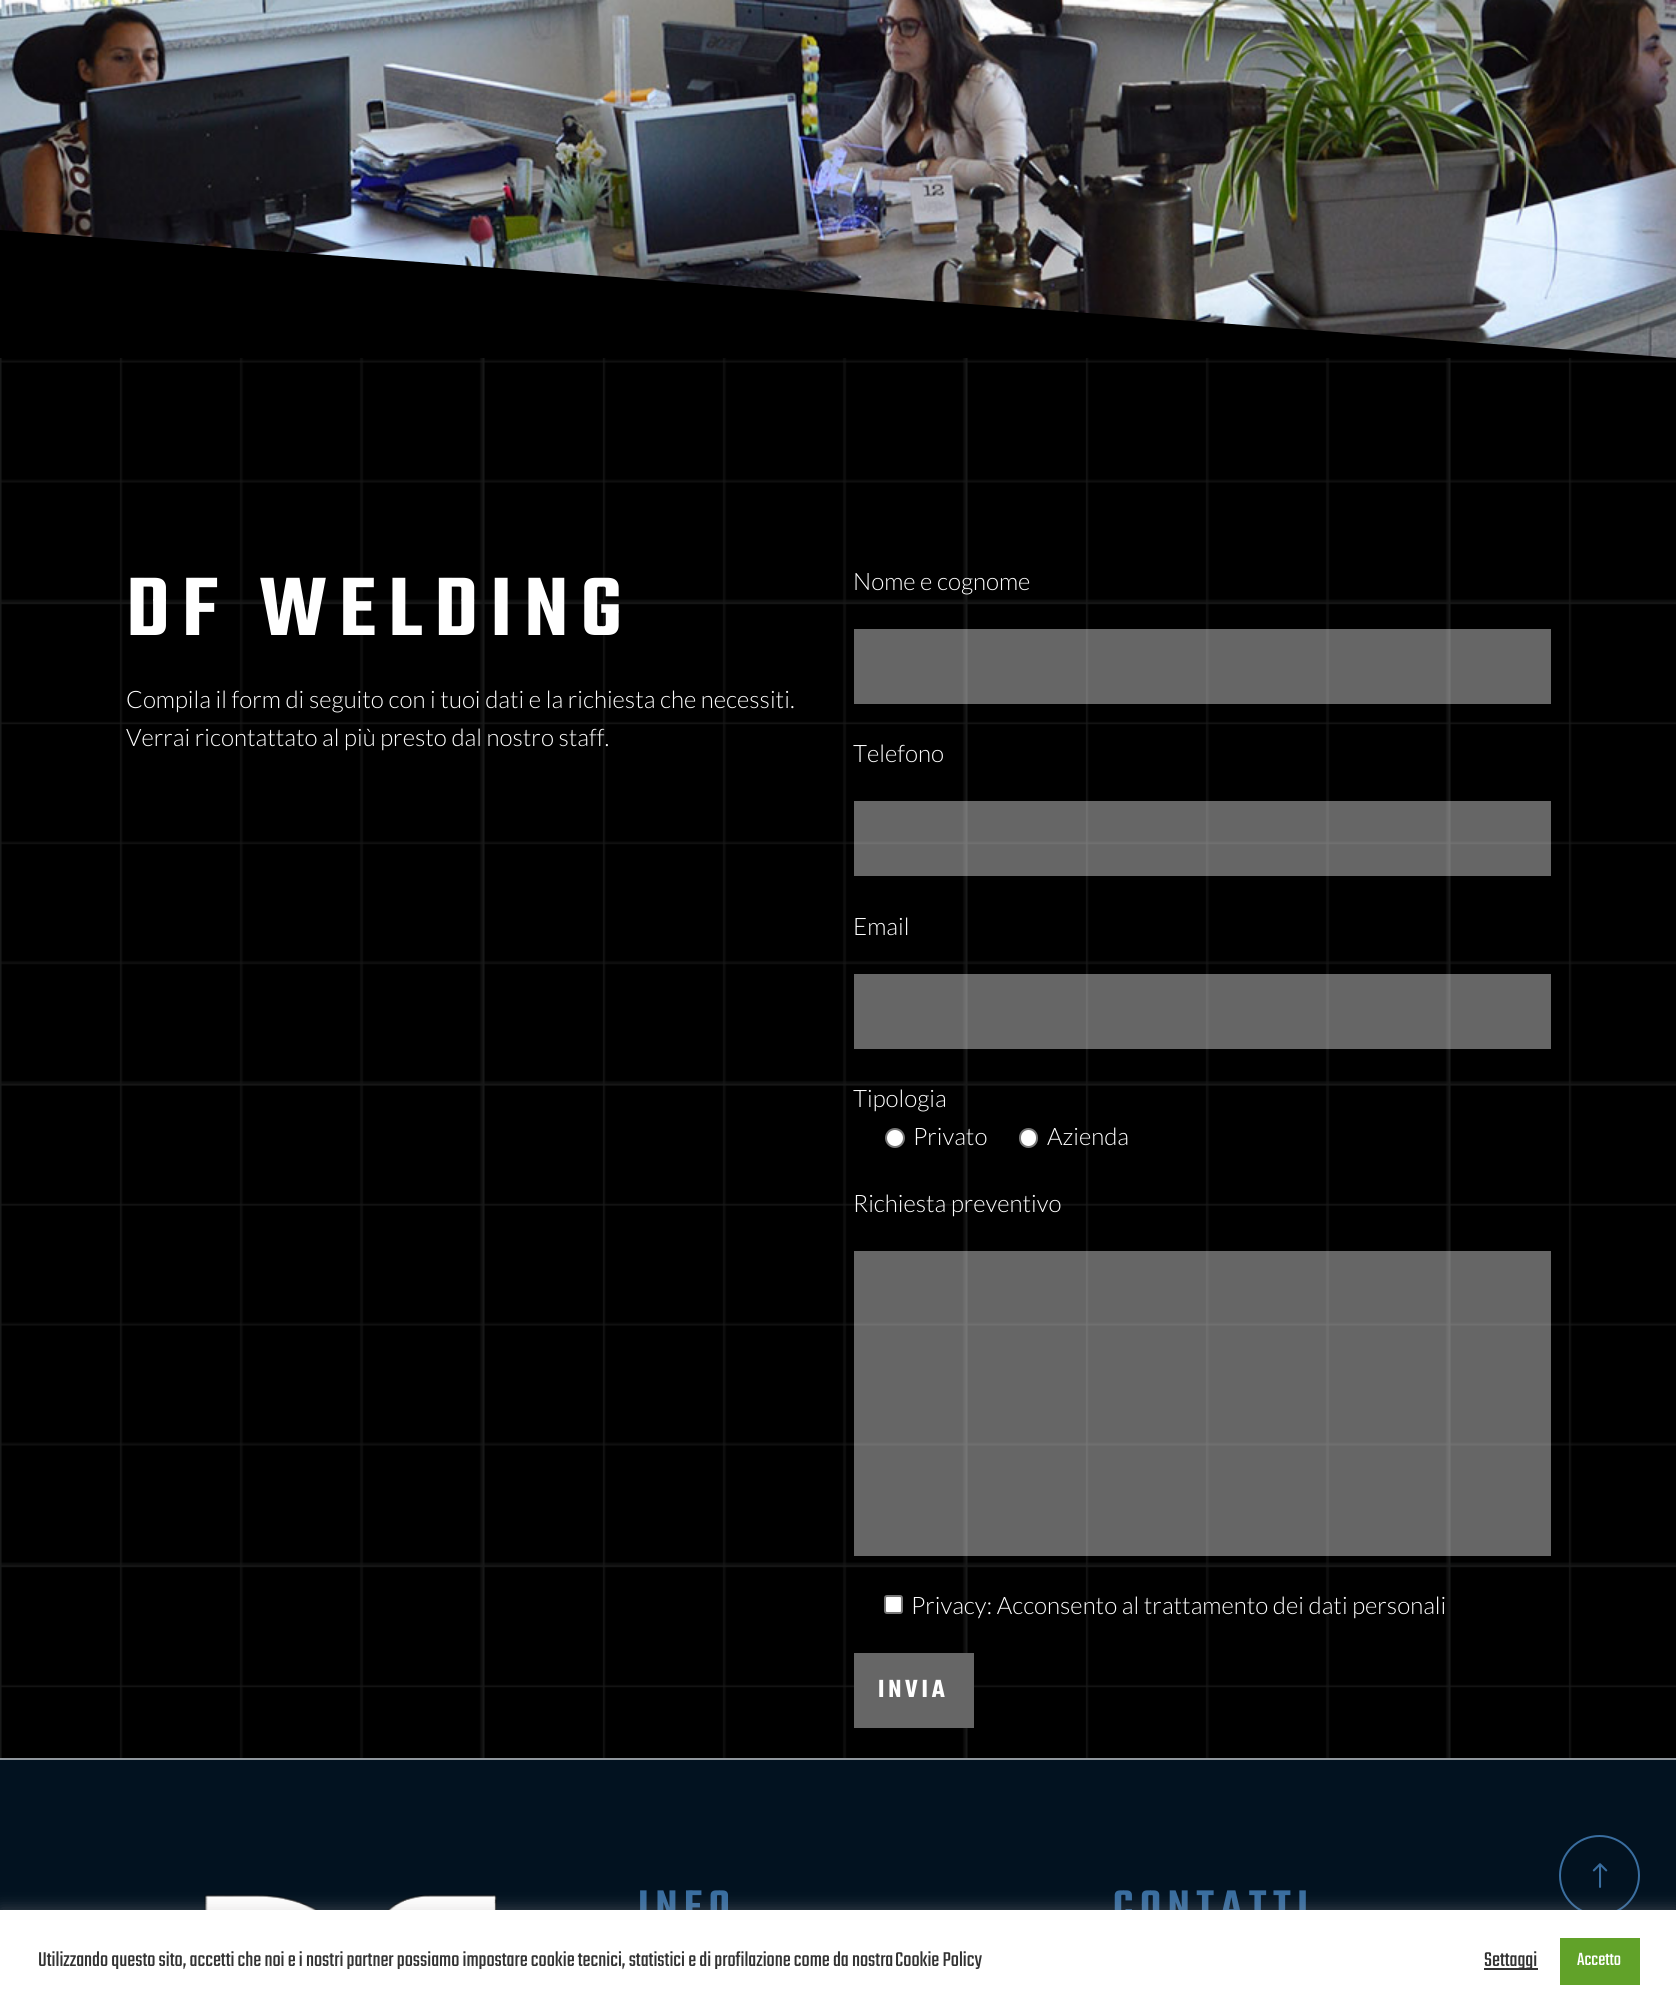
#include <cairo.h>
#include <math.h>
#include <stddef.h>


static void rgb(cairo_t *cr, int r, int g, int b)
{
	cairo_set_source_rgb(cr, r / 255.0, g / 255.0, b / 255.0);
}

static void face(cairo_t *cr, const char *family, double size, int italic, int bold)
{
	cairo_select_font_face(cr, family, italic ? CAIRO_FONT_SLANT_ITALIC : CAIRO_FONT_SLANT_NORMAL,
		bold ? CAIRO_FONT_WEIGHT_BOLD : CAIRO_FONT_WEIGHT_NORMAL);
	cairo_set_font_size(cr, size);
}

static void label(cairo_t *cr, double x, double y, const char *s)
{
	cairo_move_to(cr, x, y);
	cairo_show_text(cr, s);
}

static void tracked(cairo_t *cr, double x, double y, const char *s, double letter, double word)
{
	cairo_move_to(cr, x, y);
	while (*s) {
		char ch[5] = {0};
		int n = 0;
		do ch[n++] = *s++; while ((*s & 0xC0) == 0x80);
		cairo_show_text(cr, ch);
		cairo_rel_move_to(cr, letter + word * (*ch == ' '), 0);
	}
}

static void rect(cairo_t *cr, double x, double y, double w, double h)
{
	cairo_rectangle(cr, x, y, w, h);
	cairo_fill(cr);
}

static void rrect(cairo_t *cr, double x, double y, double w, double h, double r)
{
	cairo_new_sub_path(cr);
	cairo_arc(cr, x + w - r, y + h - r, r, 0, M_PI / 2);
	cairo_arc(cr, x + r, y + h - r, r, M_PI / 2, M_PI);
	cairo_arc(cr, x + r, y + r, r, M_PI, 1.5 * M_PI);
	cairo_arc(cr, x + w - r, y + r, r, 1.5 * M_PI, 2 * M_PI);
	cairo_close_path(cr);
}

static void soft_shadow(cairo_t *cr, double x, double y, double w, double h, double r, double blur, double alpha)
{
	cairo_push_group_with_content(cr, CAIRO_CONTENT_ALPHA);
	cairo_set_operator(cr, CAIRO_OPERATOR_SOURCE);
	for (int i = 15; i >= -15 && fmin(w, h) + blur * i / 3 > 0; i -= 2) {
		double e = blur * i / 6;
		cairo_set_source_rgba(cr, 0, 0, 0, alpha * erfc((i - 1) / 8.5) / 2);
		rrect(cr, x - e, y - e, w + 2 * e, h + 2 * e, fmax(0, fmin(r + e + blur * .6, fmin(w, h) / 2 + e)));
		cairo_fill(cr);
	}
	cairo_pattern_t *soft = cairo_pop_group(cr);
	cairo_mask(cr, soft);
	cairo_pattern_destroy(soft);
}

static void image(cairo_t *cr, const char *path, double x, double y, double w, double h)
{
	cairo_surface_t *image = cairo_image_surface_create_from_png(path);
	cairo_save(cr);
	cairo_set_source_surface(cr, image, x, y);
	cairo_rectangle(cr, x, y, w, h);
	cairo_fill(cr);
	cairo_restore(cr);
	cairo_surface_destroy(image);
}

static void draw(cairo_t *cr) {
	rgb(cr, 0, 0, 0);
	cairo_paint(cr);
	image(cr, "image0.png", 0, 358, 1676, 1400);
	image(cr, "image1.png", 0, 0, 1676, 358);
	rgb(cr, 0, 0, 0);
	cairo_new_path(cr);
	cairo_move_to(cr, 0, 230);
	cairo_line_to(cr, 0, 358);
	cairo_line_to(cr, 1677, 358);
	cairo_close_path(cr);
	cairo_fill(cr);
	face(cr, "Teko SemiBold", 90, 0, 0);
	rgb(cr, 255, 255, 255);
	tracked(cr, 126, 635, "DF WELDING", 12.5, 0);
	face(cr, "Lato Light", 24, 0, 0);
	label(cr, 126, 708, "Compila il form di seguito con i tuoi dati e la richiesta che necessiti.");
	label(cr, 126, 746, "Verrai ricontattato al più presto dal nostro staff.");
	label(cr, 853, 590, "Nome e cognome");
	cairo_set_source_rgba(cr, 1, 1, 1, 0.4);
	rect(cr, 854, 629, 697, 75);
	rgb(cr, 255, 255, 255);
	label(cr, 853, 762, "Telefono");
	cairo_set_source_rgba(cr, 1, 1, 1, 0.4);
	rect(cr, 854, 801, 697, 75);
	rgb(cr, 255, 255, 255);
	label(cr, 853, 935, "Email");
	cairo_set_source_rgba(cr, 1, 1, 1, 0.4);
	rect(cr, 854, 974, 697, 75);
	rgb(cr, 255, 255, 255);
	label(cr, 853, 1107, "Tipologia");
	cairo_new_path(cr);
	cairo_arc(cr, 895, 1138, 9, 0, 2 * M_PI);
	cairo_fill_preserve(cr);
	rgb(cr, 118, 118, 118);
	cairo_stroke(cr);
	rgb(cr, 255, 255, 255);
	label(cr, 913, 1145, "Privato");
	rrect(cr, 1020, 1129, 17, 18, 8.5);
	cairo_fill_preserve(cr);
	rgb(cr, 118, 118, 118);
	cairo_stroke(cr);
	rgb(cr, 255, 255, 255);
	label(cr, 1047, 1145, "Azienda");
	label(cr, 853, 1212, "Richiesta preventivo");
	cairo_set_source_rgba(cr, 1, 1, 1, 0.4);
	rect(cr, 854, 1251, 697, 305);
	rgb(cr, 255, 255, 255);
	rrect(cr, 885, 1596, 17, 17, 2);
	cairo_fill_preserve(cr);
	rgb(cr, 118, 118, 118);
	cairo_stroke(cr);
	rgb(cr, 255, 255, 255);
	label(cr, 911, 1614, "Privacy: Acconsento al trattamento dei dati personali");
	rgb(cr, 102, 102, 102);
	rect(cr, 854, 1653, 120, 75);
	face(cr, "Teko SemiBold", 27, 0, 0);
	rgb(cr, 255, 255, 255);
	tracked(cr, 878, 1697, "INVIA", 3.75, 0);
	rgb(cr, 2, 18, 32);
	rect(cr, 0, 1760, 1676, 150);
	rgb(cr, 144, 151, 157);
	rect(cr, 0, 1758, 1676, 2);
	image(cr, "image2.png", 204, 1894, 293, 16);
	face(cr, "Teko SemiBold", 45, 0, 0);
	rgb(cr, 57, 109, 159);
	tracked(cr, 638, 1919, "INFO", 6.75, 0);
	tracked(cr, 1113, 1919, "CONTATTI", 6.75, 0);
	cairo_new_path(cr);
	cairo_arc(cr, 1599.5, 1875.5, 39.5, 0, 2 * M_PI);
	cairo_stroke(cr);
	image(cr, "image3.png", 1592, 1863, 16, 25);
	rgb(cr, 172, 171, 171);
	soft_shadow(cr, 0, 1908, 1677, 104, 0, 7.5, 0.3);
	rgb(cr, 255, 255, 255);
	rect(cr, 0, 1910, 1676, 103);
	face(cr, "Teko", 22, 0, 0);
	rgb(cr, 51, 51, 51);
	label(cr, 38, 1966, "Utilizzando questo sito, accetti che noi e i nostri partner possiamo impostare cookie tecnici, statistici e di profilazione come da nostra");
	label(cr, 895, 1966, "Cookie Policy");
	rect(cr, 1484, 1968, 54, 2);
	label(cr, 1484, 1966, "Settaggi");
	rgb(cr, 97, 162, 41);
	rect(cr, 1560, 1938, 80, 47);
	face(cr, "Teko", 19.5, 0, 0);
	rgb(cr, 255, 255, 255);
	label(cr, 1577, 1965, "Accetto");
}

int main(void) {
	cairo_surface_t *surface = cairo_image_surface_create(CAIRO_FORMAT_RGB24, 1676, 2013);
	cairo_t *cr = cairo_create(surface);
	cairo_font_options_t *options = cairo_font_options_create();
	cairo_font_options_set_hint_metrics(options, CAIRO_HINT_METRICS_OFF);
	cairo_font_options_set_hint_style(options, CAIRO_HINT_STYLE_NONE);
	cairo_set_font_options(cr, options);
	cairo_set_miter_limit(cr, 4);
	draw(cr);
	cairo_surface_write_to_png(surface, "render.png");
	cairo_font_options_destroy(options);
	cairo_destroy(cr);
	cairo_surface_destroy(surface);
	return 0;
}
